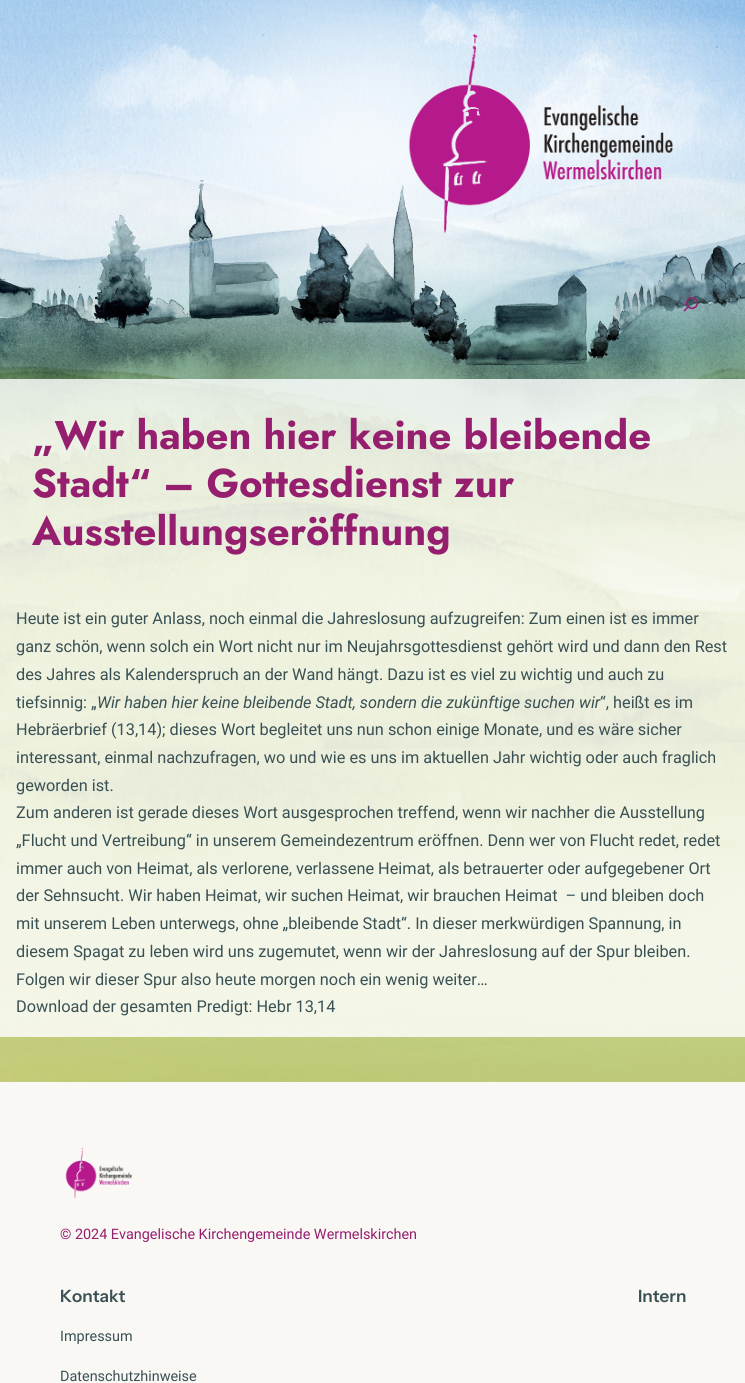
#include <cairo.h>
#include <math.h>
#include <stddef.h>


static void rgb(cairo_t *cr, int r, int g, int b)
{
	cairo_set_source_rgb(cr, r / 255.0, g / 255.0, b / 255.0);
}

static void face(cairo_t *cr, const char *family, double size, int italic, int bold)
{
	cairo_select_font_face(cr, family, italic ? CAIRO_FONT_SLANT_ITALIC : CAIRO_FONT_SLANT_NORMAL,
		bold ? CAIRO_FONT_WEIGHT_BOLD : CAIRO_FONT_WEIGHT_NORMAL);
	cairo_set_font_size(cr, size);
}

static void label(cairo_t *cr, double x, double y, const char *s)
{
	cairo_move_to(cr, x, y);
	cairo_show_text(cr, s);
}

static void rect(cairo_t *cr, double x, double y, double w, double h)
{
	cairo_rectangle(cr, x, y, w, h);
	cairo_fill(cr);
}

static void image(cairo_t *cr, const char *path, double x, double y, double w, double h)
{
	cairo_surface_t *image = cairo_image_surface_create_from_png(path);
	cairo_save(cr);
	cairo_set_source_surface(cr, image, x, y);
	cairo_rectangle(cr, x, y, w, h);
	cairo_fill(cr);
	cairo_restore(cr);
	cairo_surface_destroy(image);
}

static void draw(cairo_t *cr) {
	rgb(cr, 249, 248, 245);
	cairo_paint(cr);
	image(cr, "image0.png", 0, 0, 745, 1082);
	image(cr, "image1.png", 408, 33, 265, 201);
	image(cr, "image2.png", 683, 297, 16, 15);
	cairo_set_source_rgba(cr, 1, 1, 1, 0.81);
	rect(cr, 0, 379, 745, 658);
	face(cr, "Jost", 40, 0, 1);
	rgb(cr, 150, 30, 110);
	label(cr, 32, 449, "„Wir haben hier keine bleibende");
	label(cr, 32, 497, "Stadt“ – Gottesdienst zur");
	label(cr, 32, 545, "Ausstellungseröffnung");
	face(cr, "Roboto", 16.3, 0, 0);
	rgb(cr, 57, 80, 84);
	label(cr, 16, 624, "Heute ist ein guter Anlass, noch einmal die Jahreslosung aufzugreifen: Zum einen ist es immer");
	label(cr, 16, 652, "ganz schön, wenn solch ein Wort nicht nur im Neujahrsgottesdienst gehört wird und dann den Rest");
	label(cr, 16, 680, "des Jahres als Kalenderspruch an der Wand hängt. Dazu ist es viel zu wichtig und auch zu");
	label(cr, 16, 708, "tiefsinnig: „");
	face(cr, "Roboto", 16.3, 1, 0);
	label(cr, 97, 708, "Wir haben hier keine bleibende Stadt, sondern die zukünftige suchen wir");
	face(cr, "Roboto", 16.3, 0, 0);
	label(cr, 600, 708, "“, heißt es im");
	label(cr, 16, 735, "Hebräerbrief (13,14); dieses Wort begleitet uns nun schon einige Monate, und es wäre sicher");
	label(cr, 16, 763, "interessant, einmal nachzufragen, wo und wie es uns im aktuellen Jahr wichtig oder auch fraglich");
	label(cr, 16, 791, "geworden ist.");
	label(cr, 16, 818, "Zum anderen ist gerade dieses Wort ausgesprochen treffend, wenn wir nachher die Ausstellung");
	label(cr, 16, 846, "„Flucht und Vertreibung“ in unserem Gemeindezentrum eröffnen. Denn wer von Flucht redet, redet");
	label(cr, 16, 874, "immer auch von Heimat, als verlorene, verlassene Heimat, als betrauerter oder aufgegebener Ort");
	label(cr, 16, 901, "der Sehnsucht. Wir haben Heimat, wir suchen Heimat, wir brauchen Heimat  – und bleiben doch");
	label(cr, 16, 929, "mit unserem Leben unterwegs, ohne „bleibende Stadt“. In dieser merkwürdigen Spannung, in");
	label(cr, 16, 957, "diesem Spagat zu leben wird uns zugemutet, wenn wir der Jahreslosung auf der Spur bleiben.");
	label(cr, 16, 985, "Folgen wir dieser Spur also heute morgen noch ein wenig weiter…");
	label(cr, 16, 1012, "Download der gesamten Predigt: Hebr 13,14");
	image(cr, "image3.png", 65, 1147, 67, 52);
	face(cr, "Roboto", 14.4, 0, 0);
	rgb(cr, 150, 30, 110);
	label(cr, 60, 1239, "© 2024 Evangelische Kirchengemeinde Wermelskirchen");
	face(cr, "Instrument Sans SemiBold", 17, 0, 0);
	rgb(cr, 57, 80, 84);
	label(cr, 60, 1302, "Kontakt");
	face(cr, "Roboto", 14.4, 0, 0);
	label(cr, 60, 1341, "Impressum");
	label(cr, 60, 1381, "Datenschutzhinweise");
	face(cr, "Instrument Sans SemiBold", 17, 0, 0);
	label(cr, 638, 1302, "Intern");
}

int main(void) {
	cairo_surface_t *surface = cairo_image_surface_create(CAIRO_FORMAT_RGB24, 745, 1383);
	cairo_t *cr = cairo_create(surface);
	cairo_font_options_t *options = cairo_font_options_create();
	cairo_font_options_set_hint_metrics(options, CAIRO_HINT_METRICS_OFF);
	cairo_font_options_set_hint_style(options, CAIRO_HINT_STYLE_NONE);
	cairo_set_font_options(cr, options);
	cairo_set_miter_limit(cr, 4);
	draw(cr);
	cairo_surface_write_to_png(surface, "render.png");
	cairo_font_options_destroy(options);
	cairo_destroy(cr);
	cairo_surface_destroy(surface);
	return 0;
}
